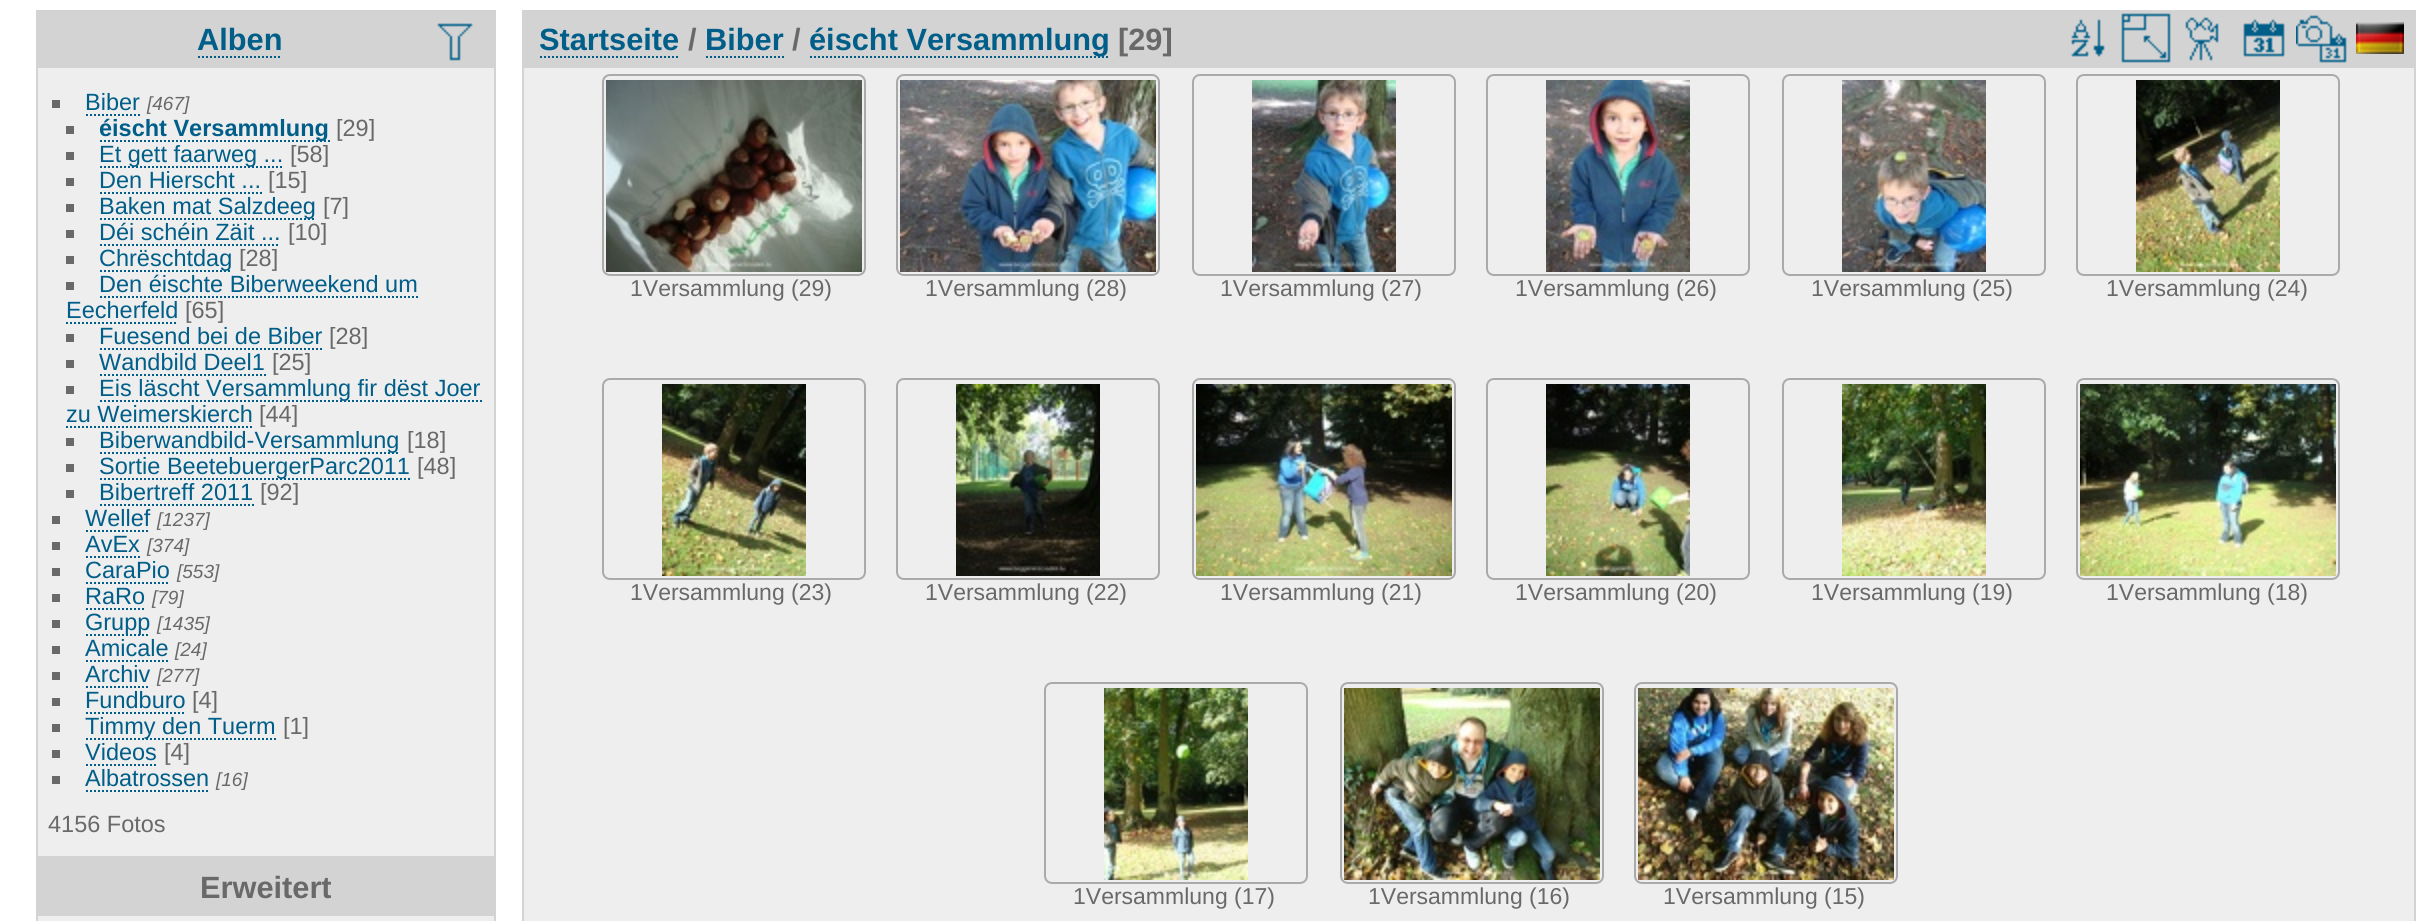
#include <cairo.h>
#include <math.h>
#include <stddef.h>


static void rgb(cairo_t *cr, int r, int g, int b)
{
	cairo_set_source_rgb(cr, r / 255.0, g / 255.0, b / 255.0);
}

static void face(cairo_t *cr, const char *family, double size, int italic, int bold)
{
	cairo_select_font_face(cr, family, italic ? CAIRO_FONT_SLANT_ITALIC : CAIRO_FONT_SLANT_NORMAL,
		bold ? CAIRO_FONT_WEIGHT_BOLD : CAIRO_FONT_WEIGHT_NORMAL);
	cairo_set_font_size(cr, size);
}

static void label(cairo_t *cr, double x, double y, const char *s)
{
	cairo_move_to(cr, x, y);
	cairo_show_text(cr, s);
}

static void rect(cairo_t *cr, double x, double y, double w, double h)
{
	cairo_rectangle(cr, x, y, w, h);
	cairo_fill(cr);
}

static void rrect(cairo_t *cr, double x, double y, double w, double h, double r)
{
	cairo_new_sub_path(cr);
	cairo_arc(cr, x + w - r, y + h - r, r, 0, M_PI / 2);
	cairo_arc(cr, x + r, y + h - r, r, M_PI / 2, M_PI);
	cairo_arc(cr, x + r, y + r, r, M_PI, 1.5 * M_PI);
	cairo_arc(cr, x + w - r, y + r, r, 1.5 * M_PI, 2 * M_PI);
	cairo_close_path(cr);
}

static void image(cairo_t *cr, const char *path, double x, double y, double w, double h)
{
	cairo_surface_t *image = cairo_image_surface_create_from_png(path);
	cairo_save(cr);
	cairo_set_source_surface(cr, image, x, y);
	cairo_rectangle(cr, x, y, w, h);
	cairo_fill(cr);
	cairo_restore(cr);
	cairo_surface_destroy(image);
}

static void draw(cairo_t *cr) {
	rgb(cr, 255, 255, 255);
	cairo_paint(cr);
	rgb(cr, 238, 238, 238);
	rect(cr, 38, 68, 456, 788);
	cairo_rectangle(cr, 37, 11, 458, 846);
	rgb(cr, 211, 211, 211);
	cairo_stroke(cr);
	rect(cr, 38, 12, 456, 56);
	face(cr, "Liberation Sans", 30.75, 0, 1);
	rgb(cr, 0, 94, 137);
	label(cr, 197, 50, "Alben");
	cairo_new_path(cr);
	cairo_move_to(cr, 198, 57);
	cairo_line_to(cr, 282, 57);
	cairo_set_dash(cr, (double[]){2, 2}, 2, 0);
	cairo_stroke(cr);
	image(cr, "image0.png", 437, 23, 36, 38);
	rgb(cr, 105, 105, 105);
	rect(cr, 52, 100, 8, 8);
	face(cr, "Liberation Sans", 23.5, 0, 0);
	rgb(cr, 0, 94, 137);
	label(cr, 85, 110, "Biber");
	cairo_new_path(cr);
	cairo_move_to(cr, 86, 115);
	cairo_line_to(cr, 140, 115);
	cairo_stroke(cr);
	face(cr, "Liberation Sans", 19, 1, 0);
	rgb(cr, 105, 105, 105);
	label(cr, 147, 110, "[467]");
	rect(cr, 66, 126, 8, 8);
	cairo_new_path(cr);
	cairo_move_to(cr, 100, 141);
	cairo_line_to(cr, 330, 141);
	rgb(cr, 0, 94, 137);
	cairo_stroke(cr);
	face(cr, "Liberation Sans", 23.5, 0, 1);
	label(cr, 99, 136, "éischt Versammlung");
	face(cr, "Liberation Sans", 23.5, 0, 0);
	rgb(cr, 105, 105, 105);
	label(cr, 336, 136, "[29]");
	rect(cr, 66, 152, 8, 8);
	cairo_new_path(cr);
	cairo_move_to(cr, 100, 167);
	cairo_line_to(cr, 284, 167);
	rgb(cr, 0, 94, 137);
	cairo_stroke(cr);
	label(cr, 99, 162, "Et gett faarweg ...");
	rgb(cr, 105, 105, 105);
	label(cr, 290, 162, "[58]");
	rect(cr, 66, 178, 8, 8);
	rgb(cr, 0, 94, 137);
	label(cr, 99, 188, "Den Hierscht ...");
	cairo_new_path(cr);
	cairo_move_to(cr, 100, 193);
	cairo_line_to(cr, 262, 193);
	cairo_stroke(cr);
	rgb(cr, 105, 105, 105);
	label(cr, 268, 188, "[15]");
	rect(cr, 66, 204, 8, 8);
	cairo_new_path(cr);
	cairo_move_to(cr, 100, 219);
	cairo_line_to(cr, 316, 219);
	rgb(cr, 0, 94, 137);
	cairo_stroke(cr);
	label(cr, 99, 214, "Baken mat Salzdeeg");
	rgb(cr, 105, 105, 105);
	label(cr, 323, 214, "[7]");
	rect(cr, 66, 230, 8, 8);
	rgb(cr, 0, 94, 137);
	label(cr, 99, 240, "Déi schéin Zäit ...");
	cairo_new_path(cr);
	cairo_move_to(cr, 100, 245);
	cairo_line_to(cr, 280, 245);
	cairo_stroke(cr);
	rgb(cr, 105, 105, 105);
	label(cr, 288, 240, "[10]");
	rect(cr, 66, 256, 8, 8);
	cairo_new_path(cr);
	cairo_move_to(cr, 100, 271);
	cairo_line_to(cr, 232, 271);
	rgb(cr, 0, 94, 137);
	cairo_stroke(cr);
	label(cr, 99, 266, "Chrëschtdag");
	rgb(cr, 105, 105, 105);
	label(cr, 239, 266, "[28]");
	rect(cr, 66, 282, 8, 8);
	rgb(cr, 0, 94, 137);
	label(cr, 99, 292, "Den éischte Biberweekend um");
	label(cr, 66, 318, "Eecherfeld");
	cairo_new_path(cr);
	cairo_move_to(cr, 100, 297);
	cairo_line_to(cr, 418, 297);
	cairo_stroke(cr);
	cairo_new_path(cr);
	cairo_move_to(cr, 66, 323);
	cairo_line_to(cr, 178, 323);
	cairo_stroke(cr);
	rgb(cr, 105, 105, 105);
	label(cr, 185, 318, "[65]");
	rect(cr, 66, 334, 8, 8);
	rgb(cr, 0, 94, 137);
	label(cr, 99, 344, "Fuesend bei de Biber");
	cairo_new_path(cr);
	cairo_move_to(cr, 100, 349);
	cairo_line_to(cr, 322, 349);
	cairo_stroke(cr);
	rgb(cr, 105, 105, 105);
	label(cr, 329, 344, "[28]");
	rect(cr, 66, 360, 8, 8);
	rgb(cr, 0, 94, 137);
	label(cr, 99, 370, "Wandbild Deel1");
	cairo_new_path(cr);
	cairo_move_to(cr, 100, 375);
	cairo_line_to(cr, 266, 375);
	cairo_stroke(cr);
	rgb(cr, 105, 105, 105);
	label(cr, 272, 370, "[25]");
	rect(cr, 66, 386, 8, 8);
	cairo_new_path(cr);
	cairo_move_to(cr, 100, 401);
	cairo_line_to(cr, 482, 401);
	rgb(cr, 0, 94, 137);
	cairo_stroke(cr);
	label(cr, 99, 396, "Eis läscht Versammlung fir dëst Joer");
	label(cr, 66, 422, "zu Weimerskierch");
	cairo_new_path(cr);
	cairo_move_to(cr, 66, 427);
	cairo_line_to(cr, 252, 427);
	cairo_stroke(cr);
	rgb(cr, 105, 105, 105);
	label(cr, 259, 422, "[44]");
	rect(cr, 66, 438, 8, 8);
	cairo_new_path(cr);
	cairo_move_to(cr, 100, 453);
	cairo_line_to(cr, 400, 453);
	rgb(cr, 0, 94, 137);
	cairo_stroke(cr);
	label(cr, 99, 448, "Biberwandbild-Versammlung");
	rgb(cr, 105, 105, 105);
	label(cr, 407, 448, "[18]");
	rect(cr, 66, 464, 8, 8);
	cairo_new_path(cr);
	cairo_move_to(cr, 100, 479);
	cairo_line_to(cr, 410, 479);
	rgb(cr, 0, 94, 137);
	cairo_stroke(cr);
	label(cr, 99, 474, "Sortie BeetebuergerParc2011");
	rgb(cr, 105, 105, 105);
	label(cr, 417, 474, "[48]");
	rect(cr, 66, 490, 8, 8);
	rgb(cr, 0, 94, 137);
	label(cr, 99, 500, "Bibertreff 2011");
	cairo_new_path(cr);
	cairo_move_to(cr, 100, 505);
	cairo_line_to(cr, 254, 505);
	cairo_stroke(cr);
	rgb(cr, 105, 105, 105);
	label(cr, 260, 500, "[92]");
	rect(cr, 52, 516, 8, 8);
	rgb(cr, 0, 94, 137);
	label(cr, 85, 526, "Wellef");
	cairo_new_path(cr);
	cairo_move_to(cr, 86, 531);
	cairo_line_to(cr, 150, 531);
	cairo_stroke(cr);
	face(cr, "Liberation Sans", 19, 1, 0);
	rgb(cr, 105, 105, 105);
	label(cr, 157, 526, "[1237]");
	rect(cr, 52, 542, 8, 8);
	face(cr, "Liberation Sans", 23.5, 0, 0);
	rgb(cr, 0, 94, 137);
	label(cr, 85, 552, "AvEx");
	cairo_new_path(cr);
	cairo_move_to(cr, 86, 557);
	cairo_line_to(cr, 140, 557);
	cairo_stroke(cr);
	face(cr, "Liberation Sans", 19, 1, 0);
	rgb(cr, 105, 105, 105);
	label(cr, 147, 552, "[374]");
	rect(cr, 52, 568, 8, 8);
	face(cr, "Liberation Sans", 23.5, 0, 0);
	rgb(cr, 0, 94, 137);
	label(cr, 85, 578, "CaraPio");
	cairo_new_path(cr);
	cairo_move_to(cr, 86, 583);
	cairo_line_to(cr, 170, 583);
	cairo_stroke(cr);
	face(cr, "Liberation Sans", 19, 1, 0);
	rgb(cr, 105, 105, 105);
	label(cr, 177, 578, "[553]");
	rect(cr, 52, 594, 8, 8);
	face(cr, "Liberation Sans", 23.5, 0, 0);
	rgb(cr, 0, 94, 137);
	label(cr, 85, 604, "RaRo");
	cairo_new_path(cr);
	cairo_move_to(cr, 86, 609);
	cairo_line_to(cr, 146, 609);
	cairo_stroke(cr);
	face(cr, "Liberation Sans", 19, 1, 0);
	rgb(cr, 105, 105, 105);
	label(cr, 152, 604, "[79]");
	rect(cr, 52, 620, 8, 8);
	cairo_new_path(cr);
	cairo_move_to(cr, 86, 635);
	cairo_line_to(cr, 150, 635);
	rgb(cr, 0, 94, 137);
	cairo_stroke(cr);
	face(cr, "Liberation Sans", 23.5, 0, 0);
	label(cr, 85, 630, "Grupp");
	face(cr, "Liberation Sans", 19, 1, 0);
	rgb(cr, 105, 105, 105);
	label(cr, 157, 630, "[1435]");
	rect(cr, 52, 646, 8, 8);
	face(cr, "Liberation Sans", 23.5, 0, 0);
	rgb(cr, 0, 94, 137);
	label(cr, 85, 656, "Amicale");
	cairo_new_path(cr);
	cairo_move_to(cr, 86, 661);
	cairo_line_to(cr, 168, 661);
	cairo_stroke(cr);
	face(cr, "Liberation Sans", 19, 1, 0);
	rgb(cr, 105, 105, 105);
	label(cr, 175, 656, "[24]");
	rect(cr, 52, 672, 8, 8);
	face(cr, "Liberation Sans", 23.5, 0, 0);
	rgb(cr, 0, 94, 137);
	label(cr, 85, 682, "Archiv");
	cairo_new_path(cr);
	cairo_move_to(cr, 86, 687);
	cairo_line_to(cr, 150, 687);
	cairo_stroke(cr);
	face(cr, "Liberation Sans", 19, 1, 0);
	rgb(cr, 105, 105, 105);
	label(cr, 157, 682, "[277]");
	rect(cr, 52, 698, 8, 8);
	face(cr, "Liberation Sans", 23.5, 0, 0);
	rgb(cr, 0, 94, 137);
	label(cr, 85, 708, "Fundburo");
	cairo_new_path(cr);
	cairo_move_to(cr, 86, 713);
	cairo_line_to(cr, 186, 713);
	cairo_stroke(cr);
	rgb(cr, 105, 105, 105);
	label(cr, 192, 708, "[4]");
	rect(cr, 52, 724, 8, 8);
	cairo_new_path(cr);
	cairo_move_to(cr, 86, 739);
	cairo_line_to(cr, 276, 739);
	rgb(cr, 0, 94, 137);
	cairo_stroke(cr);
	label(cr, 85, 734, "Timmy den Tuerm");
	rgb(cr, 105, 105, 105);
	label(cr, 283, 734, "[1]");
	rect(cr, 52, 750, 8, 8);
	rgb(cr, 0, 94, 137);
	label(cr, 85, 760, "Videos");
	cairo_new_path(cr);
	cairo_move_to(cr, 86, 765);
	cairo_line_to(cr, 158, 765);
	cairo_stroke(cr);
	rgb(cr, 105, 105, 105);
	label(cr, 164, 760, "[4]");
	rect(cr, 52, 776, 8, 8);
	rgb(cr, 0, 94, 137);
	label(cr, 85, 786, "Albatrossen");
	cairo_new_path(cr);
	cairo_move_to(cr, 86, 791);
	cairo_line_to(cr, 210, 791);
	cairo_stroke(cr);
	face(cr, "Liberation Sans", 19, 1, 0);
	rgb(cr, 105, 105, 105);
	label(cr, 216, 786, "[16]");
	face(cr, "Liberation Sans", 23.5, 0, 0);
	label(cr, 48, 832, "4156 Fotos");
	rgb(cr, 238, 238, 238);
	rect(cr, 38, 916, 456, 5);
	cairo_rectangle(cr, 37, 859, 458, 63);
	rgb(cr, 211, 211, 211);
	cairo_set_dash(cr, NULL, 0, 0);
	cairo_stroke(cr);
	rect(cr, 38, 860, 456, 56);
	face(cr, "Liberation Sans", 30.75, 0, 1);
	rgb(cr, 105, 105, 105);
	label(cr, 200, 898, "Erweitert");
	rgb(cr, 238, 238, 238);
	rect(cr, 524, 68, 1890, 853);
	cairo_rectangle(cr, 523, 11, 1892, 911);
	rgb(cr, 211, 211, 211);
	cairo_stroke(cr);
	rect(cr, 524, 12, 1890, 56);
	rgb(cr, 0, 94, 137);
	label(cr, 539, 50, "Startseite");
	cairo_new_path(cr);
	cairo_move_to(cr, 540, 57);
	cairo_line_to(cr, 680, 57);
	cairo_set_dash(cr, (double[]){2, 2}, 2, 0);
	cairo_stroke(cr);
	rgb(cr, 105, 105, 105);
	label(cr, 688, 50, "/");
	rgb(cr, 0, 94, 137);
	label(cr, 705, 50, "Biber");
	cairo_new_path(cr);
	cairo_move_to(cr, 706, 57);
	cairo_line_to(cr, 784, 57);
	cairo_stroke(cr);
	rgb(cr, 105, 105, 105);
	label(cr, 792, 50, "/");
	cairo_new_path(cr);
	cairo_move_to(cr, 810, 57);
	cairo_line_to(cr, 1110, 57);
	rgb(cr, 0, 94, 137);
	cairo_stroke(cr);
	label(cr, 809, 50, "éischt Versammlung");
	rgb(cr, 105, 105, 105);
	label(cr, 1118, 50, "[29]");
	image(cr, "image1.png", 2071, 19, 34, 38);
	image(cr, "image2.png", 2121, 13, 50, 50);
	image(cr, "image3.png", 2185, 17, 34, 44);
	image(cr, "image4.png", 2243, 19, 42, 38);
	image(cr, "image5.png", 2296, 15, 51, 48);
	image(cr, "image6.png", 2356, 22, 48, 32);
	rrect(cr, 603, 75, 262, 200, 7);
	rgb(cr, 170, 170, 170);
	cairo_set_dash(cr, NULL, 0, 0);
	cairo_stroke(cr);
	image(cr, "image7.png", 606, 80, 256, 192);
	face(cr, "Liberation Sans", 23, 0, 0);
	rgb(cr, 105, 105, 105);
	label(cr, 630, 296, "1Versammlung (29)");
	rrect(cr, 897, 75, 262, 200, 7);
	rgb(cr, 170, 170, 170);
	cairo_stroke(cr);
	image(cr, "image8.png", 900, 80, 256, 192);
	rgb(cr, 105, 105, 105);
	label(cr, 925, 296, "1Versammlung (28)");
	rrect(cr, 1193, 75, 262, 200, 7);
	rgb(cr, 170, 170, 170);
	cairo_stroke(cr);
	image(cr, "image9.png", 1252, 80, 144, 192);
	rgb(cr, 105, 105, 105);
	label(cr, 1220, 296, "1Versammlung (27)");
	rrect(cr, 1487, 75, 262, 200, 7);
	rgb(cr, 170, 170, 170);
	cairo_stroke(cr);
	image(cr, "image10.png", 1546, 80, 144, 192);
	rgb(cr, 105, 105, 105);
	label(cr, 1515, 296, "1Versammlung (26)");
	rrect(cr, 1783, 75, 262, 200, 7);
	rgb(cr, 170, 170, 170);
	cairo_stroke(cr);
	image(cr, "image11.png", 1842, 80, 144, 192);
	rgb(cr, 105, 105, 105);
	label(cr, 1811, 296, "1Versammlung (25)");
	rrect(cr, 2077, 75, 262, 200, 7);
	rgb(cr, 170, 170, 170);
	cairo_stroke(cr);
	image(cr, "image12.png", 2136, 80, 144, 192);
	rgb(cr, 105, 105, 105);
	label(cr, 2106, 296, "1Versammlung (24)");
	rrect(cr, 603, 379, 262, 200, 7);
	rgb(cr, 170, 170, 170);
	cairo_stroke(cr);
	image(cr, "image13.png", 662, 384, 144, 192);
	rgb(cr, 105, 105, 105);
	label(cr, 630, 600, "1Versammlung (23)");
	rrect(cr, 897, 379, 262, 200, 7);
	rgb(cr, 170, 170, 170);
	cairo_stroke(cr);
	image(cr, "image14.png", 956, 384, 144, 192);
	rgb(cr, 105, 105, 105);
	label(cr, 925, 600, "1Versammlung (22)");
	rrect(cr, 1193, 379, 262, 200, 7);
	rgb(cr, 170, 170, 170);
	cairo_stroke(cr);
	image(cr, "image15.png", 1196, 384, 256, 192);
	rgb(cr, 105, 105, 105);
	label(cr, 1220, 600, "1Versammlung (21)");
	rrect(cr, 1487, 379, 262, 200, 7);
	rgb(cr, 170, 170, 170);
	cairo_stroke(cr);
	image(cr, "image16.png", 1546, 384, 144, 192);
	rgb(cr, 105, 105, 105);
	label(cr, 1515, 600, "1Versammlung (20)");
	rrect(cr, 1783, 379, 262, 200, 7);
	rgb(cr, 170, 170, 170);
	cairo_stroke(cr);
	image(cr, "image17.png", 1842, 384, 144, 192);
	rgb(cr, 105, 105, 105);
	label(cr, 1811, 600, "1Versammlung (19)");
	rrect(cr, 2077, 379, 262, 200, 7);
	rgb(cr, 170, 170, 170);
	cairo_stroke(cr);
	image(cr, "image18.png", 2080, 384, 256, 192);
	rgb(cr, 105, 105, 105);
	label(cr, 2106, 600, "1Versammlung (18)");
	rrect(cr, 1045, 683, 262, 200, 7);
	rgb(cr, 170, 170, 170);
	cairo_stroke(cr);
	image(cr, "image19.png", 1104, 688, 144, 192);
	rgb(cr, 105, 105, 105);
	label(cr, 1073, 904, "1Versammlung (17)");
	rrect(cr, 1341, 683, 262, 200, 7);
	rgb(cr, 170, 170, 170);
	cairo_stroke(cr);
	image(cr, "image20.png", 1344, 688, 256, 192);
	rgb(cr, 105, 105, 105);
	label(cr, 1368, 904, "1Versammlung (16)");
	rrect(cr, 1635, 683, 262, 200, 7);
	rgb(cr, 170, 170, 170);
	cairo_stroke(cr);
	image(cr, "image21.png", 1638, 688, 256, 192);
	rgb(cr, 105, 105, 105);
	label(cr, 1663, 904, "1Versammlung (15)");
}

int main(void) {
	cairo_surface_t *surface = cairo_image_surface_create(CAIRO_FORMAT_RGB24, 2425, 921);
	cairo_t *cr = cairo_create(surface);
	cairo_font_options_t *options = cairo_font_options_create();
	cairo_font_options_set_hint_metrics(options, CAIRO_HINT_METRICS_OFF);
	cairo_font_options_set_hint_style(options, CAIRO_HINT_STYLE_NONE);
	cairo_set_font_options(cr, options);
	cairo_set_miter_limit(cr, 4);
	draw(cr);
	cairo_surface_write_to_png(surface, "render.png");
	cairo_font_options_destroy(options);
	cairo_destroy(cr);
	cairo_surface_destroy(surface);
	return 0;
}
